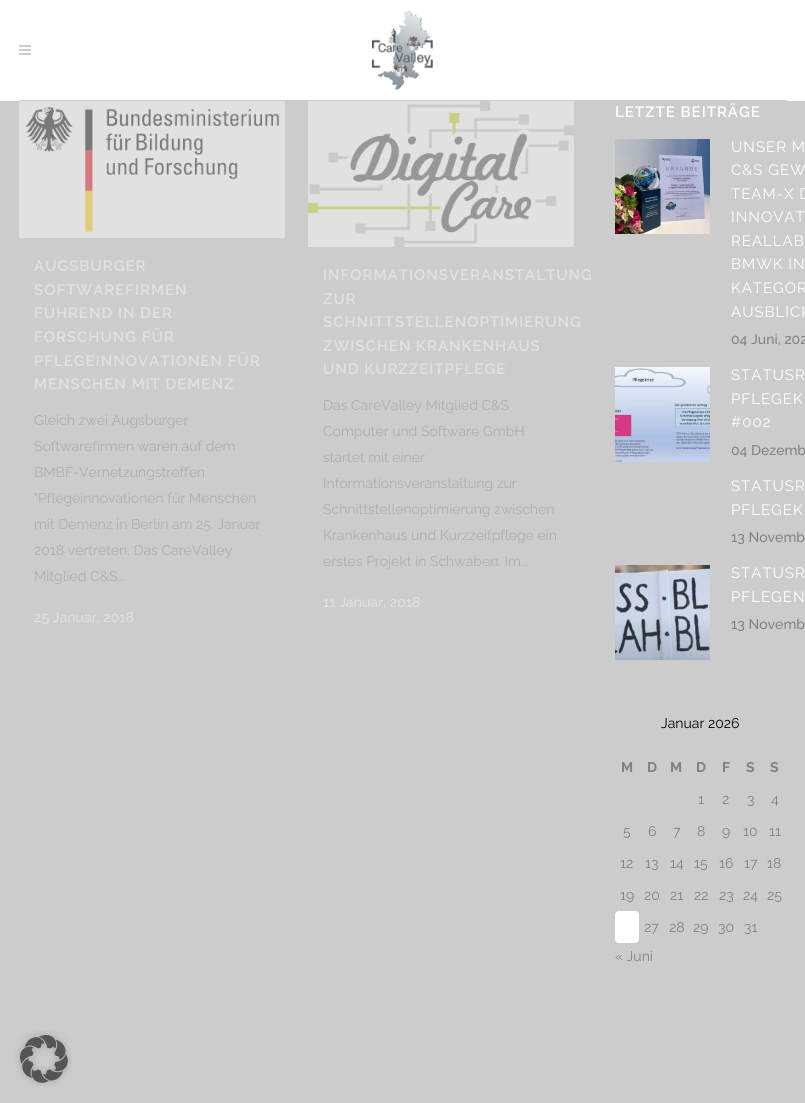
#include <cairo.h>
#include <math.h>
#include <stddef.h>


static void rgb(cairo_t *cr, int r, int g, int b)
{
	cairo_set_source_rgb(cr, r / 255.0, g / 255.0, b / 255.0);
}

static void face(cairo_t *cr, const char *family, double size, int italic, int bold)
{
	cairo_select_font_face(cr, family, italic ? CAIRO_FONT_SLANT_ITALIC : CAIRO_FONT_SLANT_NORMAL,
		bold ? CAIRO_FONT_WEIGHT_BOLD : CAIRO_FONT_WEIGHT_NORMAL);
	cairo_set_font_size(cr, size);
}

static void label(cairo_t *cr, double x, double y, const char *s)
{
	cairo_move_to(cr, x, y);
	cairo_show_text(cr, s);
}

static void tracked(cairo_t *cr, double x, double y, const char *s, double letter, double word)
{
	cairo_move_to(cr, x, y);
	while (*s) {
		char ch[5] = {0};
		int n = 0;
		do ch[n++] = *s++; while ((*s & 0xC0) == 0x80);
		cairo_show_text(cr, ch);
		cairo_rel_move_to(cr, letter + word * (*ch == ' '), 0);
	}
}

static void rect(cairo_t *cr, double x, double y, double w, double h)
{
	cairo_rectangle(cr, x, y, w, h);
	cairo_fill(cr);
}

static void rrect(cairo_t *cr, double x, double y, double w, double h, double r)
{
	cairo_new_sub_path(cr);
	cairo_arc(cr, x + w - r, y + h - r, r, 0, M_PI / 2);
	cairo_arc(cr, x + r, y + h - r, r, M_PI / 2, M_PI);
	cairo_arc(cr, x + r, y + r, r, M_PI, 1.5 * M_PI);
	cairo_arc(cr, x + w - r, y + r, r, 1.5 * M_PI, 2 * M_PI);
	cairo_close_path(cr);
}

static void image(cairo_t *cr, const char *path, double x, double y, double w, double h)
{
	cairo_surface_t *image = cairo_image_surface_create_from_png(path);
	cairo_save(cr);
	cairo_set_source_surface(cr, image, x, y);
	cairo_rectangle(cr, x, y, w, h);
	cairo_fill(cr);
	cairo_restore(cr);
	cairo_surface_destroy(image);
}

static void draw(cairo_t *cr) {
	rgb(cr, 204, 204, 204);
	cairo_paint(cr);
	rgb(cr, 255, 255, 255);
	rect(cr, 0, 0, 805, 101);
	rgb(cr, 204, 204, 204);
	rect(cr, 19, 100, 768, 1);
	image(cr, "image0.png", 19, 45, 12, 10);
	image(cr, "image1.png", 372, 10, 61, 80);
	image(cr, "image2.png", 19, 101, 266, 137);
	face(cr, "Raleway SemiBold", 15, 0, 0);
	rgb(cr, 225, 225, 225);
	tracked(cr, 34, 271, "AUGSBURGER", 1, 0);
	tracked(cr, 34, 295, "SOFTWAREFIRMEN", 1, 0);
	tracked(cr, 34, 318, "FÜHREND IN DER", 1, 0);
	tracked(cr, 34, 342, "FORSCHUNG FÜR", 1, 0);
	tracked(cr, 34, 366, "PFLEGEINNOVATIONEN FÜR", 1, 0);
	tracked(cr, 34, 389, "MENSCHEN MIT DEMENZ", 1, 0);
	face(cr, "Raleway", 14, 0, 0);
	rgb(cr, 173, 173, 173);
	label(cr, 34, 425, "Gleich zwei Augsburger");
	label(cr, 34, 451, "Softwarefirmen waren auf dem");
	label(cr, 34, 477, "BMBF-Vernetzungstreffen");
	label(cr, 34, 503, "\"Pflegeinnovationen für Menschen");
	label(cr, 34, 529, "mit Demenz in Berlin am 25. Januar");
	label(cr, 34, 555, "2018 vertreten. Das CareValley");
	label(cr, 34, 581, "Mitglied C&S...");
	face(cr, "Raleway Medium", 14, 0, 0);
	rgb(cr, 225, 225, 225);
	label(cr, 34, 622, "25 Januar, 2018");
	image(cr, "image3.png", 308, 101, 266, 146);
	face(cr, "Raleway SemiBold", 15, 0, 0);
	tracked(cr, 323, 280, "INFORMATIONSVERANSTALTUNG", 1, 0);
	tracked(cr, 323, 304, "ZUR", 1, 0);
	tracked(cr, 323, 327, "SCHNITTSTELLENOPTIMIERUNG", 1, 0);
	tracked(cr, 323, 351, "ZWISCHEN KRANKENHAUS", 1, 0);
	tracked(cr, 323, 374, "UND KURZZEITPFLEGE", 1, 0);
	face(cr, "Raleway", 14, 0, 0);
	rgb(cr, 173, 173, 173);
	label(cr, 323, 410, "Das CareValley Mitglied C&S");
	label(cr, 323, 436, "Computer und Software GmbH");
	label(cr, 323, 462, "startet mit einer");
	label(cr, 323, 488, "Informationsveranstaltung zur");
	label(cr, 323, 514, "Schnittstellenoptimierung zwischen");
	label(cr, 323, 540, "Krankenhaus und Kurzzeitpflege ein");
	label(cr, 323, 566, "erstes Projekt in Schwaben. Im...");
	face(cr, "Raleway Medium", 14, 0, 0);
	rgb(cr, 225, 225, 225);
	label(cr, 323, 607, "11 Januar, 2018");
	face(cr, "Raleway SemiBold", 15, 0, 0);
	rgb(cr, 255, 255, 255);
	tracked(cr, 615, 117, "LETZTE BEITRÄGE", 1, 0);
	image(cr, "image4.png", 615, 139, 95, 95);
	face(cr, "Raleway", 15, 0, 0);
	tracked(cr, 731, 152, "UNSER M", 1, 0);
	tracked(cr, 731, 175, "C&S GEW", 1, 0);
	tracked(cr, 731, 199, "TEAM-X D", 1, 0);
	tracked(cr, 731, 222, "INNOVAT", 1, 0);
	tracked(cr, 731, 246, "REALLAB", 1, 0);
	tracked(cr, 731, 269, "BMWK IN", 1, 0);
	tracked(cr, 731, 293, "KATEGOR", 1, 0);
	tracked(cr, 731, 317, "AUSBLICK", 1, 0);
	face(cr, "Raleway Medium", 14, 0, 0);
	rgb(cr, 129, 129, 129);
	label(cr, 731, 344, "04 Juni, 202");
	image(cr, "image5.png", 615, 367, 95, 95);
	face(cr, "Raleway", 15, 0, 0);
	rgb(cr, 255, 255, 255);
	tracked(cr, 731, 380, "STATUSR", 1, 0);
	tracked(cr, 731, 404, "PFLEGEK", 1, 0);
	tracked(cr, 731, 427, "#002", 1, 0);
	face(cr, "Raleway Medium", 14, 0, 0);
	rgb(cr, 129, 129, 129);
	label(cr, 731, 455, "04 Dezemb");
	face(cr, "Raleway", 15, 0, 0);
	rgb(cr, 255, 255, 255);
	tracked(cr, 731, 491, "STATUSR", 1, 0);
	tracked(cr, 731, 515, "PFLEGEK", 1, 0);
	face(cr, "Raleway Medium", 14, 0, 0);
	rgb(cr, 129, 129, 129);
	label(cr, 731, 542, "13 Novemb");
	image(cr, "image6.png", 615, 565, 95, 95);
	face(cr, "Raleway", 15, 0, 0);
	rgb(cr, 255, 255, 255);
	tracked(cr, 731, 578, "STATUSR", 1, 0);
	tracked(cr, 731, 602, "PFLEGEN", 1, 0);
	face(cr, "Raleway Medium", 14, 0, 0);
	rgb(cr, 129, 129, 129);
	label(cr, 731, 629, "13 Novemb");
	face(cr, "Raleway", 14, 0, 0);
	rgb(cr, 0, 0, 0);
	label(cr, 661, 728, "Januar 2026");
	face(cr, "Raleway", 14, 0, 1);
	rgb(cr, 129, 129, 129);
	label(cr, 621, 772, "M");
	label(cr, 647, 772, "D");
	label(cr, 670, 772, "M");
	label(cr, 696, 772, "D");
	label(cr, 722, 772, "F");
	label(cr, 746, 772, "S");
	label(cr, 770, 772, "S");
	face(cr, "Raleway", 14, 0, 0);
	label(cr, 698, 804, "1");
	label(cr, 722, 804, "2");
	label(cr, 747, 804, "3");
	label(cr, 771, 804, "4");
	label(cr, 623, 836, "5");
	label(cr, 648, 836, "6");
	label(cr, 673, 836, "7");
	label(cr, 697, 836, "8");
	label(cr, 722, 836, "9");
	label(cr, 743, 836, "10");
	label(cr, 769, 836, "11");
	label(cr, 620, 868, "12");
	label(cr, 645, 868, "13");
	label(cr, 670, 868, "14");
	label(cr, 694, 868, "15");
	label(cr, 719, 868, "16");
	label(cr, 744, 868, "17");
	label(cr, 767, 868, "18");
	label(cr, 620, 900, "19");
	label(cr, 644, 900, "20");
	label(cr, 670, 900, "21");
	label(cr, 694, 900, "22");
	label(cr, 719, 900, "23");
	label(cr, 743, 900, "24");
	label(cr, 767, 900, "25");
	rgb(cr, 255, 255, 255);
	rrect(cr, 615, 911, 24, 32, 4);
	cairo_fill(cr);
	rgb(cr, 129, 129, 129);
	label(cr, 644, 932, "27");
	label(cr, 669, 932, "28");
	label(cr, 693, 932, "29");
	label(cr, 718, 932, "30");
	label(cr, 744, 932, "31");
	label(cr, 615, 961, "« Juni");
	image(cr, "image7.png", 15, 1030, 57, 57);
}

int main(void) {
	cairo_surface_t *surface = cairo_image_surface_create(CAIRO_FORMAT_RGB24, 805, 1103);
	cairo_t *cr = cairo_create(surface);
	cairo_font_options_t *options = cairo_font_options_create();
	cairo_font_options_set_hint_metrics(options, CAIRO_HINT_METRICS_OFF);
	cairo_font_options_set_hint_style(options, CAIRO_HINT_STYLE_NONE);
	cairo_set_font_options(cr, options);
	cairo_set_miter_limit(cr, 4);
	draw(cr);
	cairo_surface_write_to_png(surface, "render.png");
	cairo_font_options_destroy(options);
	cairo_destroy(cr);
	cairo_surface_destroy(surface);
	return 0;
}
